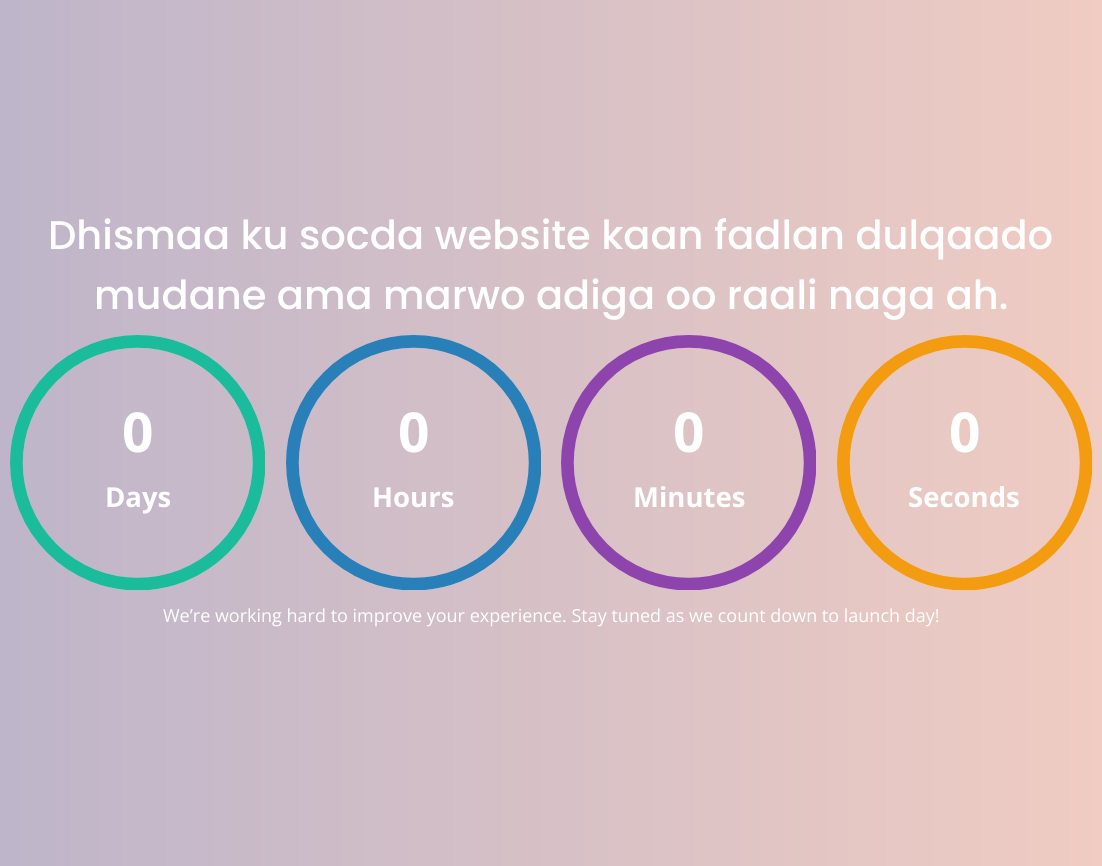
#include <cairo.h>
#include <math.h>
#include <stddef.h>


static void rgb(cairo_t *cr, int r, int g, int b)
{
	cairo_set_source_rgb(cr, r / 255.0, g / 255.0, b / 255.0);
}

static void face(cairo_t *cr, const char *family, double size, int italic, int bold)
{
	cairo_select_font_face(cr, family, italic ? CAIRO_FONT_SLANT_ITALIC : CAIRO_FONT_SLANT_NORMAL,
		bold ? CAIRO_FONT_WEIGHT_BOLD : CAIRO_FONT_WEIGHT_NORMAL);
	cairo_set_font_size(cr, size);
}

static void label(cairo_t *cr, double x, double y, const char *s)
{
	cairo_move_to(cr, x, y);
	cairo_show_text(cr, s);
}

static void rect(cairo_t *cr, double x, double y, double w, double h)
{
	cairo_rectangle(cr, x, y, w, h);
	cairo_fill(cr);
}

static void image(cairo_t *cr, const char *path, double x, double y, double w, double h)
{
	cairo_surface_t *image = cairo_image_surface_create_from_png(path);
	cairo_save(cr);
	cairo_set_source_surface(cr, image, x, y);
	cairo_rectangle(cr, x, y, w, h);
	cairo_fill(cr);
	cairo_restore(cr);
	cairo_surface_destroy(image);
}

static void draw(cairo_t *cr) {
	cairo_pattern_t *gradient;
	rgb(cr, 255, 255, 255);
	cairo_paint(cr);
	gradient = cairo_pattern_create_linear(0, 433, 1102, 433);
	cairo_pattern_add_color_stop_rgba(gradient, 0, 0.745, 0.71, 0.792, 1);
	cairo_pattern_add_color_stop_rgba(gradient, 1, 0.941, 0.8, 0.761, 1);
	cairo_set_source(cr, gradient);
	cairo_pattern_destroy(gradient);
	rect(cr, 0, 0, 1102, 866);
	face(cr, "Poppins Medium", 40, 0, 0);
	rgb(cr, 255, 255, 255);
	label(cr, 48, 249, "Dhismaa ku socda website kaan fadlan dulqaado");
	label(cr, 94, 309, "mudane ama marwo adiga oo raali naga ah.");
	image(cr, "image0.png", 10, 335, 255, 255);
	face(cr, "Open Sans", 55, 0, 1);
	label(cr, 122, 452, "0");
	face(cr, "Open Sans", 27.5, 0, 1);
	label(cr, 105, 507, "Days");
	image(cr, "image1.png", 286, 335, 255, 255);
	face(cr, "Open Sans", 55, 0, 1);
	label(cr, 398, 452, "0");
	face(cr, "Open Sans", 27.5, 0, 1);
	label(cr, 372, 507, "Hours");
	image(cr, "image2.png", 561, 335, 255, 255);
	face(cr, "Open Sans", 55, 0, 1);
	label(cr, 673, 452, "0");
	face(cr, "Open Sans", 27.5, 0, 1);
	label(cr, 633, 507, "Minutes");
	image(cr, "image3.png", 837, 335, 255, 255);
	face(cr, "Open Sans", 55, 0, 1);
	label(cr, 949, 452, "0");
	face(cr, "Open Sans", 27.5, 0, 1);
	label(cr, 908, 507, "Seconds");
	face(cr, "Open Sans", 18, 0, 0);
	label(cr, 163, 622, "We’re working hard to improve your experience. Stay tuned as we count down to launch day!");
}

int main(void) {
	cairo_surface_t *surface = cairo_image_surface_create(CAIRO_FORMAT_RGB24, 1102, 866);
	cairo_t *cr = cairo_create(surface);
	cairo_font_options_t *options = cairo_font_options_create();
	cairo_font_options_set_hint_metrics(options, CAIRO_HINT_METRICS_OFF);
	cairo_font_options_set_hint_style(options, CAIRO_HINT_STYLE_NONE);
	cairo_set_font_options(cr, options);
	cairo_set_miter_limit(cr, 4);
	draw(cr);
	cairo_surface_write_to_png(surface, "render.png");
	cairo_font_options_destroy(options);
	cairo_destroy(cr);
	cairo_surface_destroy(surface);
	return 0;
}
